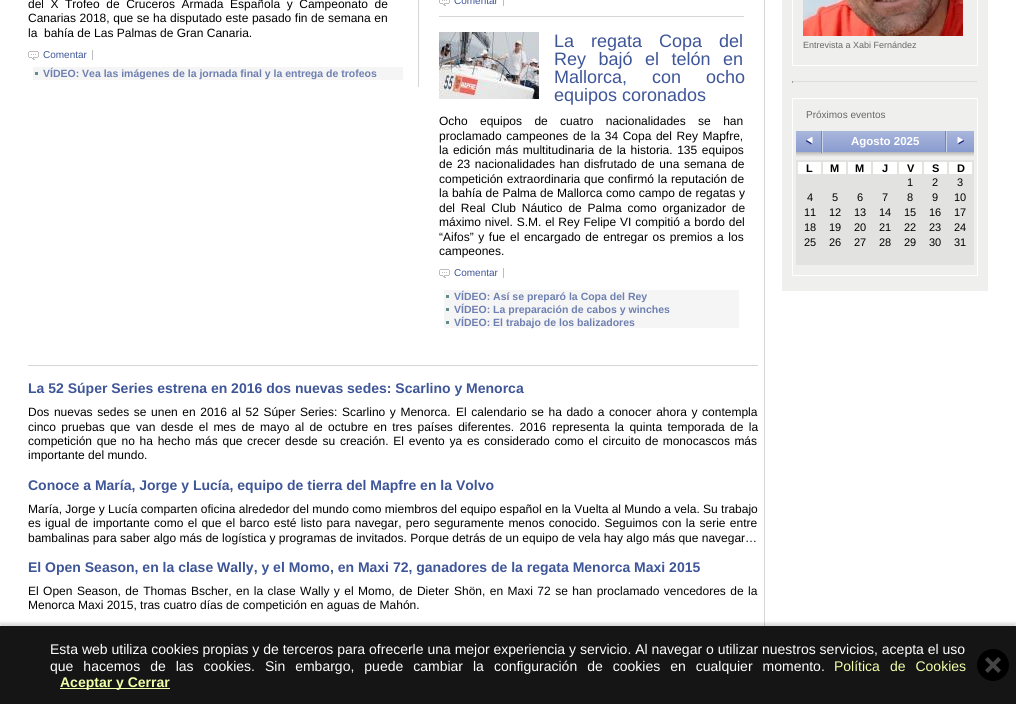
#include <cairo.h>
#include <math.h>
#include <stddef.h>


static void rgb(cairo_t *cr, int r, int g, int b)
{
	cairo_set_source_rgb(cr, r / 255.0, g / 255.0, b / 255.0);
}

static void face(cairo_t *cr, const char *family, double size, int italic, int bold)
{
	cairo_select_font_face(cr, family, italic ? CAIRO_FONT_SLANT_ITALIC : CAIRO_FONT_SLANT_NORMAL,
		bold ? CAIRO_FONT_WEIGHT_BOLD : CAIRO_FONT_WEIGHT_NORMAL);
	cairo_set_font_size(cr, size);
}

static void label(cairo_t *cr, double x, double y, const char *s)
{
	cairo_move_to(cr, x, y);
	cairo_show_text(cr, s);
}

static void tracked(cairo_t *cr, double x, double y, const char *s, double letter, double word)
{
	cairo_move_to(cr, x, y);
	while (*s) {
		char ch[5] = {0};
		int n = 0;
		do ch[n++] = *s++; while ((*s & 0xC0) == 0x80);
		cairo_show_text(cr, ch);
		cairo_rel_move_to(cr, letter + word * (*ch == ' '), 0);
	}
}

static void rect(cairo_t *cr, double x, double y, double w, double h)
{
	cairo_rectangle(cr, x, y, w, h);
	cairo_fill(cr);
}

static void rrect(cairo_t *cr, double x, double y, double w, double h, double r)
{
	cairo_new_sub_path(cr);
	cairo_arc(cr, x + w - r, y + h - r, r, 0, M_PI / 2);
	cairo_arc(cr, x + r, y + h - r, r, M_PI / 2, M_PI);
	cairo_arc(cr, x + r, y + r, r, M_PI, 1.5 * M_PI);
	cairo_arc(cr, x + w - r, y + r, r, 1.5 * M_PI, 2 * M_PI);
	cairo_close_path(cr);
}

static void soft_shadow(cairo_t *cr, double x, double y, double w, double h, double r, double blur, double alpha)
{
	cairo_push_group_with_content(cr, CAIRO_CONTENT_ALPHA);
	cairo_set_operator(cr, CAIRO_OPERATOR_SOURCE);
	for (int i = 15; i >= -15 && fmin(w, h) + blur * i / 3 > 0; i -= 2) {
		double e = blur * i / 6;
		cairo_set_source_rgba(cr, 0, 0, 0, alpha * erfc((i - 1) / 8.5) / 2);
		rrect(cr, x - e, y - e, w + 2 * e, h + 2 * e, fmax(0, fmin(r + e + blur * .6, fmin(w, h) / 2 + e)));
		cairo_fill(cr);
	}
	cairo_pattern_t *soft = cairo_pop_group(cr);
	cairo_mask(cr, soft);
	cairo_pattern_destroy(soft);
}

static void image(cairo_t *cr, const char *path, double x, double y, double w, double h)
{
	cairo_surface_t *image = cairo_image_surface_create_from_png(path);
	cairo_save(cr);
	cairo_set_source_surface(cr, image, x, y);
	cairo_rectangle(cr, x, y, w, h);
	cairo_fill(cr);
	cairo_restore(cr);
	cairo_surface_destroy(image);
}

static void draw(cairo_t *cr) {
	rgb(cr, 255, 255, 255);
	cairo_paint(cr);
	rgb(cr, 214, 214, 214);
	rect(cr, 764, 0, 1, 626);
	rgb(cr, 213, 213, 213);
	rect(cr, 418, 0, 1, 87);
	face(cr, "Liberation Sans", 12, 0, 0);
	rgb(cr, 0, 0, 0);
	tracked(cr, 28, 8, "del X", 0, 3.25);
	tracked(cr, 65, 8, "Trofeo de Cruceros Armada Española y Campeonato de", 0, 3.25);
	tracked(cr, 28, 22, "Canarias 2018, que se ha disputado este pasado fin de semana en", 0, 0.25);
	label(cr, 28, 37, "la  bahía de Las Palmas de Gran Canaria.");
	image(cr, "image0.png", 28, 51, 11, 9);
	rgb(cr, 189, 189, 189);
	rect(cr, 92, 50, 1, 10);
	face(cr, "Liberation Sans", 10, 0, 0);
	rgb(cr, 62, 85, 151);
	label(cr, 43, 58, "Comentar");
	rgb(cr, 245, 245, 245);
	rect(cr, 33, 67, 370, 13);
	face(cr, "Liberation Sans", 10.5, 0, 1);
	rgb(cr, 110, 128, 177);
	label(cr, 43, 77, "VÍDEO: Vea las imágenes de la jornada final y la entrega de trofeos");
	rgb(cr, 100, 139, 139);
	rect(cr, 35, 72, 3, 3);
	rgb(cr, 214, 214, 214);
	rect(cr, 439, 16, 305, 1);
	image(cr, "image1.png", 439, 0, 11, 6);
	rgb(cr, 189, 189, 189);
	rect(cr, 503, 0, 1, 6);
	face(cr, "Liberation Sans", 10, 0, 0);
	rgb(cr, 62, 85, 151);
	label(cr, 454, 4, "Comentar");
	image(cr, "image2.png", 439, 32, 100, 67);
	face(cr, "Liberation Sans", 18, 0, 0);
	tracked(cr, 554, 47, "La regata Copa del", 0, 12);
	tracked(cr, 554, 65, "Rey bajó el telón en", 0, 7.5);
	tracked(cr, 554, 83, "Mallorca, con ocho", 0, 20);
	label(cr, 554, 101, "equipos coronados");
	face(cr, "Liberation Sans", 12, 0, 0);
	rgb(cr, 0, 0, 0);
	tracked(cr, 439, 125, "Ocho equipos de cuatro nacionalidades se han", 0, 9);
	tracked(cr, 439, 140, "proclamado campeones de la 34 Copa del Rey Mapfre,", 0, 1.25);
	tracked(cr, 439, 154, "la edición más multitudinaria de la historia. 135 equipos", 0, 1.25);
	tracked(cr, 439, 168, "de 23 nacionalidades han disfrutado de una semana de", 0, 1.25);
	tracked(cr, 439, 183, "competición extraordinaria que confirmó la reputación de", 0, 0.5);
	tracked(cr, 439, 197, "la bahía de Palma de Mallorca como campo de regatas y", 0, 0.25);
	tracked(cr, 439, 212, "del Real Club Náutico de Palma como organizador de", 0, 2.5);
	tracked(cr, 439, 226, "máximo nivel. S.M. el Rey Felipe VI compitió a bordo del", 0, 0.5);
	tracked(cr, 439, 241, "“Aifos” y fue el encargado de entregar os premios a los", 0, 1.25);
	label(cr, 439, 255, "campeones.");
	image(cr, "image0.png", 439, 269, 11, 9);
	rgb(cr, 189, 189, 189);
	rect(cr, 503, 268, 1, 10);
	face(cr, "Liberation Sans", 10, 0, 0);
	rgb(cr, 62, 85, 151);
	label(cr, 454, 276, "Comentar");
	rgb(cr, 245, 245, 245);
	rect(cr, 444, 290, 295, 38);
	face(cr, "Liberation Sans", 10.5, 0, 1);
	rgb(cr, 110, 128, 177);
	label(cr, 454, 300, "VÍDEO: Así se preparó la Copa del Rey");
	rgb(cr, 100, 139, 139);
	rect(cr, 446, 295, 3, 3);
	rgb(cr, 110, 128, 177);
	label(cr, 454, 313, "VÍDEO: La preparación de cabos y winches");
	rgb(cr, 100, 139, 139);
	rect(cr, 446, 308, 3, 3);
	rgb(cr, 110, 128, 177);
	label(cr, 454, 326, "VÍDEO: El trabajo de los balizadores");
	rgb(cr, 100, 139, 139);
	rect(cr, 446, 321, 3, 3);
	rgb(cr, 214, 214, 214);
	rect(cr, 28, 365, 730, 1);
	face(cr, "Liberation Sans", 14, 0, 1);
	rgb(cr, 62, 85, 151);
	label(cr, 28, 393, "La 52 Súper Series estrena en 2016 dos nuevas sedes: Scarlino y Menorca");
	face(cr, "Liberation Sans", 12, 0, 0);
	rgb(cr, 0, 0, 0);
	tracked(cr, 28, 416, "Dos nuevas sedes se unen en 2016 al 52 Súper Series: Scarlino y Menorca.", 0, 1.25);
	tracked(cr, 456, 416, "El calendario se ha dado a conocer ahora y contempla", 0, 1.25);
	tracked(cr, 28, 431, "cinco pruebas que", 0, 2);
	tracked(cr, 136, 431, "van desde el mes de mayo al de octubre en tres países diferentes. 2016", 0, 2);
	tracked(cr, 552, 431, "representa la quinta temporada de la", 0, 2);
	tracked(cr, 28, 445, "competición que no ha hecho más que", 0, 1.4);
	tracked(cr, 247, 445, "crecer desde su creación. El evento ya es considerado como el circuito", 0, 1.4);
	tracked(cr, 645, 445, "de monocascos más", 0, 1);
	label(cr, 28, 459, "importante del mundo.");
	face(cr, "Liberation Sans", 14, 0, 1);
	rgb(cr, 62, 85, 151);
	label(cr, 28, 490, "Conoce a María, Jorge y Lucía, equipo de tierra del Mapfre en la Volvo");
	face(cr, "Liberation Sans", 12, 0, 0);
	rgb(cr, 0, 0, 0);
	label(cr, 28, 513, "María, Jorge y Lucía comparten oficina alrededor del mundo como miembros del equipo español en la Vuelta al Mundo a vela. Su trabajo");
	tracked(cr, 28, 527, "es igual de", 0, 1);
	tracked(cr, 93, 527, "importante como el que el barco esté listo para navegar, pero", 0, 1);
	tracked(cr, 434, 527, "seguramente menos conocido. Seguimos con la serie entre", 0, 1);
	label(cr, 28, 542, "bambalinas para saber algo más de logística y programas de invitados. Porque detrás de un equipo de vela hay algo más que navegar…");
	face(cr, "Liberation Sans", 14, 0, 1);
	rgb(cr, 62, 85, 151);
	label(cr, 28, 572, "El Open Season, en la clase Wally, y el Momo, en Maxi 72, ganadores de la regata Menorca Maxi 2015");
	face(cr, "Liberation Sans", 12, 0, 0);
	rgb(cr, 0, 0, 0);
	tracked(cr, 28, 595, "El Open Season, de Thomas Bscher, en la clase Wally y el Momo, de Dieter", 0, 1.1);
	tracked(cr, 454, 595, "Shön, en Maxi 72 se han proclamado vencedores de la", 0, 1.1);
	label(cr, 28, 609, "Menorca Maxi 2015, tras cuatro días de competición en aguas de Mahón.");
	rgb(cr, 239, 239, 238);
	rect(cr, 782, 0, 206, 291);
	cairo_rectangle(cr, 792.5, -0.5, 185, 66);
	rgb(cr, 255, 255, 255);
	cairo_set_line_width(cr, 1);
	cairo_stroke(cr);
	image(cr, "image3.png", 803, 0, 160, 36);
	face(cr, "Liberation Sans", 9, 0, 0);
	rgb(cr, 102, 102, 102);
	label(cr, 803, 48, "Entrevista a Xabi Fernández");
	rgb(cr, 221, 221, 220);
	rect(cr, 792, 81, 186, 1);
	rgb(cr, 238, 238, 238);
	rect(cr, 977, 81, 1, 2);
	rgb(cr, 159, 159, 159);
	rect(cr, 792, 81, 1, 2);
	cairo_rectangle(cr, 792.5, 98.5, 185, 177);
	rgb(cr, 255, 255, 255);
	cairo_stroke(cr);
	face(cr, "Liberation Sans", 10, 0, 0);
	rgb(cr, 102, 102, 102);
	label(cr, 806, 118, "Próximos eventos");
	image(cr, "image4.png", 796, 131, 178, 26);
	image(cr, "image5.png", 821, 131, 2, 22);
	image(cr, "image6.png", 806, 137, 7, 8);
	image(cr, "image7.png", 945, 131, 2, 21);
	face(cr, "Liberation Sans", 11.5, 0, 1);
	rgb(cr, 255, 255, 255);
	label(cr, 851, 145, "Agosto 2025");
	image(cr, "image8.png", 957, 137, 7, 8);
	rgb(cr, 226, 226, 225);
	rect(cr, 796, 160, 178, 105);
	rgb(cr, 255, 255, 255);
	rect(cr, 798, 162, 23, 12);
	face(cr, "Liberation Sans", 11, 0, 1);
	rgb(cr, 0, 0, 0);
	label(cr, 806, 172, "L");
	rgb(cr, 255, 255, 255);
	rect(cr, 823, 162, 23, 12);
	rgb(cr, 0, 0, 0);
	label(cr, 830, 172, "M");
	rgb(cr, 255, 255, 255);
	rect(cr, 848, 162, 23, 12);
	rgb(cr, 0, 0, 0);
	label(cr, 855, 172, "M");
	rgb(cr, 255, 255, 255);
	rect(cr, 873, 162, 24, 12);
	rgb(cr, 0, 0, 0);
	label(cr, 882, 172, "J");
	rgb(cr, 255, 255, 255);
	rect(cr, 899, 162, 23, 12);
	rgb(cr, 0, 0, 0);
	label(cr, 907, 172, "V");
	rgb(cr, 255, 255, 255);
	rect(cr, 924, 162, 23, 12);
	rgb(cr, 0, 0, 0);
	label(cr, 932, 172, "S");
	rgb(cr, 255, 255, 255);
	rect(cr, 949, 162, 23, 12);
	rgb(cr, 0, 0, 0);
	label(cr, 957, 172, "D");
	face(cr, "Liberation Sans", 11, 0, 0);
	label(cr, 907, 186, "1");
	label(cr, 932, 186, "2");
	label(cr, 957, 186, "3");
	label(cr, 807, 201, "4");
	label(cr, 832, 201, "5");
	label(cr, 857, 201, "6");
	label(cr, 882, 201, "7");
	label(cr, 907, 201, "8");
	label(cr, 932, 201, "9");
	label(cr, 954, 201, "10");
	label(cr, 804, 216, "11");
	label(cr, 829, 216, "12");
	label(cr, 854, 216, "13");
	label(cr, 879, 216, "14");
	label(cr, 904, 216, "15");
	label(cr, 929, 216, "16");
	label(cr, 954, 216, "17");
	label(cr, 804, 231, "18");
	label(cr, 829, 231, "19");
	label(cr, 854, 231, "20");
	label(cr, 879, 231, "21");
	label(cr, 904, 231, "22");
	label(cr, 929, 231, "23");
	label(cr, 954, 231, "24");
	label(cr, 804, 246, "25");
	label(cr, 829, 246, "26");
	label(cr, 854, 246, "27");
	label(cr, 879, 246, "28");
	label(cr, 904, 246, "29");
	label(cr, 929, 246, "30");
	label(cr, 954, 246, "31");
	rgb(cr, 0, 0, 0);
	soft_shadow(cr, 0, 623, 1016, 78, 0, 1.5, 0.15);
	rgb(cr, 21, 21, 21);
	rect(cr, 0, 626, 1016, 78);
	face(cr, "Liberation Sans", 14, 0, 0);
	rgb(cr, 255, 255, 255);
	label(cr, 50, 654, "Esta web utiliza cookies propias y de terceros para ofrecerle una mejor experiencia y servicio. Al navegar o utilizar nuestros servicios, acepta el uso");
	tracked(cr, 50, 671, "que hacemos de las cookies. Sin embargo, puede cambiar la configuración de cookies en cualquier momento.", 0, 6.1);
	rgb(cr, 240, 255, 170);
	tracked(cr, 834, 671, "Política de Cookies", 0, 6.1);
	rect(cr, 60, 688, 110, 1);
	face(cr, "Liberation Sans", 14, 0, 1);
	label(cr, 60, 687, "Aceptar y Cerrar");
	rgb(cr, 0, 0, 0);
	cairo_new_path(cr);
	cairo_arc(cr, 993, 665, 16, 0, 2 * M_PI);
	cairo_fill(cr);
	image(cr, "image9.png", 985, 657, 16, 16);
}

int main(void) {
	cairo_surface_t *surface = cairo_image_surface_create(CAIRO_FORMAT_RGB24, 1016, 704);
	cairo_t *cr = cairo_create(surface);
	cairo_font_options_t *options = cairo_font_options_create();
	cairo_font_options_set_hint_metrics(options, CAIRO_HINT_METRICS_OFF);
	cairo_font_options_set_hint_style(options, CAIRO_HINT_STYLE_NONE);
	cairo_set_font_options(cr, options);
	cairo_set_miter_limit(cr, 4);
	draw(cr);
	cairo_surface_write_to_png(surface, "render.png");
	cairo_font_options_destroy(options);
	cairo_destroy(cr);
	cairo_surface_destroy(surface);
	return 0;
}
